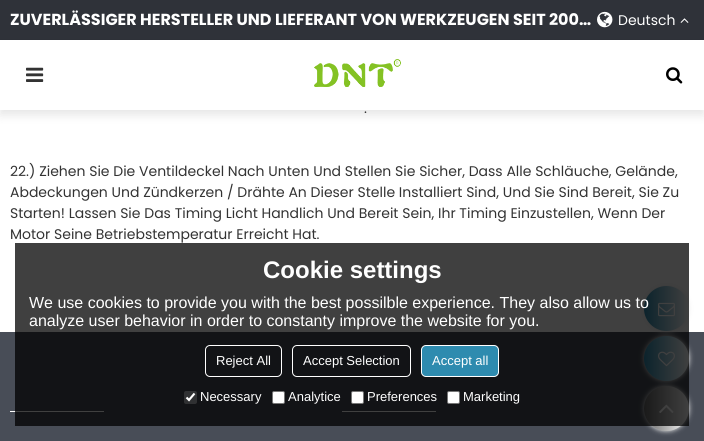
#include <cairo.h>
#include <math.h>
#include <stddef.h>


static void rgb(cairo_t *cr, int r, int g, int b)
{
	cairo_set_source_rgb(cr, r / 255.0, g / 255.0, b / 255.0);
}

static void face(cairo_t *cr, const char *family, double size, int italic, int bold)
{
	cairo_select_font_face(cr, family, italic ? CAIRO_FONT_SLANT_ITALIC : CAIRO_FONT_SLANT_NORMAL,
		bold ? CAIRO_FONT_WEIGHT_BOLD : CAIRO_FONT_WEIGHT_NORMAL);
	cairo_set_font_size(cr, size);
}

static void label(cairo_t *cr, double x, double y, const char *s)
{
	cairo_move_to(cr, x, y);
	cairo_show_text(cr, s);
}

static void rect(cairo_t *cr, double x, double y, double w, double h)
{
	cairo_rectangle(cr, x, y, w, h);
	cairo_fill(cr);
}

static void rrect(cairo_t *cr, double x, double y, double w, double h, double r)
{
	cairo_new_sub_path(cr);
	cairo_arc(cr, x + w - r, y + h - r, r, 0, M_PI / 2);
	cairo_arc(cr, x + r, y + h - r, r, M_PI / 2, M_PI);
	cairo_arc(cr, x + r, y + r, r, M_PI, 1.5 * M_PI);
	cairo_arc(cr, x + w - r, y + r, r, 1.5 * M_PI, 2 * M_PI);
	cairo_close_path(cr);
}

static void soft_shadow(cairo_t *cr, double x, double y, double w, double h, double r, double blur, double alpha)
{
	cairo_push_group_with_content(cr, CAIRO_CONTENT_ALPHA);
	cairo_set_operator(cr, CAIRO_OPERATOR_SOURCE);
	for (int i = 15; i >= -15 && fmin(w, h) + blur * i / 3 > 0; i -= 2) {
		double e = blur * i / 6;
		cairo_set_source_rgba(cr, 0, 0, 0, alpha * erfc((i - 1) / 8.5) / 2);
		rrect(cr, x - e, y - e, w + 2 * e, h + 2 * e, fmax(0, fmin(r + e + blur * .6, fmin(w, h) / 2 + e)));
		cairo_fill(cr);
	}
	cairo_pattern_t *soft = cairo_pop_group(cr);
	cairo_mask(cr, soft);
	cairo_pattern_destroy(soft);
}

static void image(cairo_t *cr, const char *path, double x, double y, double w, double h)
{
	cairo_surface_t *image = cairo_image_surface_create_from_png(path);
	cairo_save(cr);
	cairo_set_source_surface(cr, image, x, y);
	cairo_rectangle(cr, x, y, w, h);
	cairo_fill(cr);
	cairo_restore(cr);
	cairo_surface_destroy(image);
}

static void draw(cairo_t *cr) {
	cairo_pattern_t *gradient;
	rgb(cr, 255, 255, 255);
	cairo_paint(cr);
	rgb(cr, 47, 50, 57);
	rect(cr, 0, 0, 704, 40);
	face(cr, "Poppins", 16, 0, 1);
	rgb(cr, 255, 255, 255);
	label(cr, 10, 25, "ZUVERLÄSSIGER HERSTELLER UND LIEFERANT VON WERKZEUGEN SEIT 200…");
	image(cr, "image0.png", 597, 11, 16, 17);
	face(cr, "Poppins", 14, 0, 0);
	label(cr, 618, 25, "Deutsch");
	image(cr, "image1.png", 680, 18, 9, 5);
	rgb(cr, 0, 0, 0);
	soft_shadow(cr, 0, 45, 704, 70, 0, 5, 0.1);
	rgb(cr, 255, 255, 255);
	rect(cr, 0, 40, 704, 70);
	image(cr, "image2.png", 26, 67, 18, 15);
	image(cr, "image3.png", 314, 59, 87, 28);
	image(cr, "image4.png", 666, 67, 17, 17);
	rgb(cr, 51, 51, 51);
	label(cr, 364, 113, ".");
	label(cr, 10, 176, "22.) Ziehen Sie Die Ventildeckel Nach Unten Und Stellen Sie Sicher, Dass Alle Schläuche, Gelände,");
	label(cr, 10, 197, "Abdeckungen Und Zündkerzen / Drähte An Dieser Stelle Installiert Sind, Und Sie Sind Bereit, Sie Zu");
	label(cr, 10, 218, "Starten! Lassen Sie Das Timing Licht Handlich Und Bereit Sein, Ihr Timing Einzustellen, Wenn Der");
	label(cr, 10, 239, "Motor Seine Betriebstemperatur Erreicht Hat.");
	rgb(cr, 72, 77, 87);
	rect(cr, 0, 332, 704, 109);
	rgb(cr, 255, 255, 255);
	rect(cr, 10, 411, 94, 1);
	rect(cr, 342, 411, 94, 1);
	rgb(cr, 238, 238, 238);
	soft_shadow(cr, 644, 286, 45, 45, 22.5, 2.5, 1);
	gradient = cairo_pattern_create_linear(644, 309, 689, 309);
	cairo_pattern_add_color_stop_rgba(gradient, 0, 0.18, 0.545, 0.686, 1);
	cairo_pattern_add_color_stop_rgba(gradient, 1, 1, 1, 1, 1);
	cairo_set_source(cr, gradient);
	cairo_pattern_destroy(gradient);
	cairo_arc(cr, 666.5, 308.5, 22.5, 0, 2 * M_PI);
	cairo_fill(cr);
	image(cr, "image5.png", 658, 302, 17, 15);
	rgb(cr, 238, 238, 238);
	soft_shadow(cr, 644, 336, 45, 45, 22.5, 2.5, 1);
	gradient = cairo_pattern_create_linear(644, 359, 689, 359);
	cairo_pattern_add_color_stop_rgba(gradient, 0, 0.18, 0.545, 0.686, 1);
	cairo_pattern_add_color_stop_rgba(gradient, 1, 1, 1, 1, 1);
	cairo_set_source(cr, gradient);
	cairo_pattern_destroy(gradient);
	cairo_arc(cr, 666.5, 358.5, 22.5, 0, 2 * M_PI);
	cairo_fill(cr);
	image(cr, "image6.png", 658, 351, 17, 16);
	rgb(cr, 238, 238, 238);
	soft_shadow(cr, 644, 386, 45, 45, 22.5, 2.5, 1);
	gradient = cairo_pattern_create_linear(644, 409, 689, 409);
	cairo_pattern_add_color_stop_rgba(gradient, 0, 0.4, 0.4, 0.4, 1);
	cairo_pattern_add_color_stop_rgba(gradient, 1, 1, 1, 1, 1);
	cairo_set_source(cr, gradient);
	cairo_pattern_destroy(gradient);
	cairo_arc(cr, 666.5, 408.5, 22.5, 0, 2 * M_PI);
	cairo_fill(cr);
	image(cr, "image7.png", 659, 404, 15, 9);
	cairo_set_source_rgba(cr, 0, 0, 0, 0.75);
	rect(cr, 15, 243, 674, 183);
	face(cr, "Liberation Sans", 24, 0, 1);
	rgb(cr, 255, 255, 255);
	label(cr, 263, 278, "Cookie settings");
	face(cr, "Liberation Sans", 16, 0, 0);
	label(cr, 29, 308, "We use cookies to provide you with the best possilble experience. They also allow us to");
	label(cr, 29, 326, "analyze user behavior in order to constanty improve the website for you.");
	rrect(cr, 205.5, 345.5, 76, 31, 4.5);
	cairo_set_line_width(cr, 1);
	cairo_stroke(cr);
	face(cr, "Liberation Sans", 13, 0, 0);
	label(cr, 216, 365, "Reject All");
	rrect(cr, 292.5, 345.5, 118, 31, 4.5);
	cairo_stroke(cr);
	label(cr, 303, 365, "Accept Selection");
	rgb(cr, 46, 139, 175);
	rrect(cr, 421.5, 345.5, 77, 31, 4.5);
	cairo_fill_preserve(cr);
	rgb(cr, 255, 255, 255);
	cairo_stroke(cr);
	label(cr, 432, 365, "Accept all");
	rgb(cr, 48, 49, 51);
	rrect(cr, 184, 391, 13, 13, 2);
	cairo_fill(cr);
	cairo_new_path(cr);
	cairo_move_to(cr, 186.5, 397.5);
	cairo_line_to(cr, 189, 400);
	cairo_line_to(cr, 194.5, 393.5);
	rgb(cr, 255, 255, 255);
	cairo_set_line_width(cr, 2.1);
	cairo_stroke(cr);
	label(cr, 200, 401, "Necessary");
	rrect(cr, 272.5, 391.5, 12, 12, 1.5);
	cairo_fill_preserve(cr);
	rgb(cr, 118, 118, 118);
	cairo_set_line_width(cr, 1);
	cairo_stroke(cr);
	rgb(cr, 255, 255, 255);
	label(cr, 288, 401, "Analytice");
	rrect(cr, 351.5, 391.5, 12, 12, 1.5);
	cairo_fill_preserve(cr);
	rgb(cr, 118, 118, 118);
	cairo_stroke(cr);
	rgb(cr, 255, 255, 255);
	label(cr, 367, 401, "Preferences");
	rrect(cr, 447.5, 391.5, 12, 12, 1.5);
	cairo_fill_preserve(cr);
	rgb(cr, 118, 118, 118);
	cairo_stroke(cr);
	rgb(cr, 255, 255, 255);
	label(cr, 463, 401, "Marketing");
}

int main(void) {
	cairo_surface_t *surface = cairo_image_surface_create(CAIRO_FORMAT_RGB24, 704, 441);
	cairo_t *cr = cairo_create(surface);
	cairo_font_options_t *options = cairo_font_options_create();
	cairo_font_options_set_hint_metrics(options, CAIRO_HINT_METRICS_OFF);
	cairo_font_options_set_hint_style(options, CAIRO_HINT_STYLE_NONE);
	cairo_set_font_options(cr, options);
	cairo_set_miter_limit(cr, 4);
	draw(cr);
	cairo_surface_write_to_png(surface, "render.png");
	cairo_font_options_destroy(options);
	cairo_destroy(cr);
	cairo_surface_destroy(surface);
	return 0;
}
